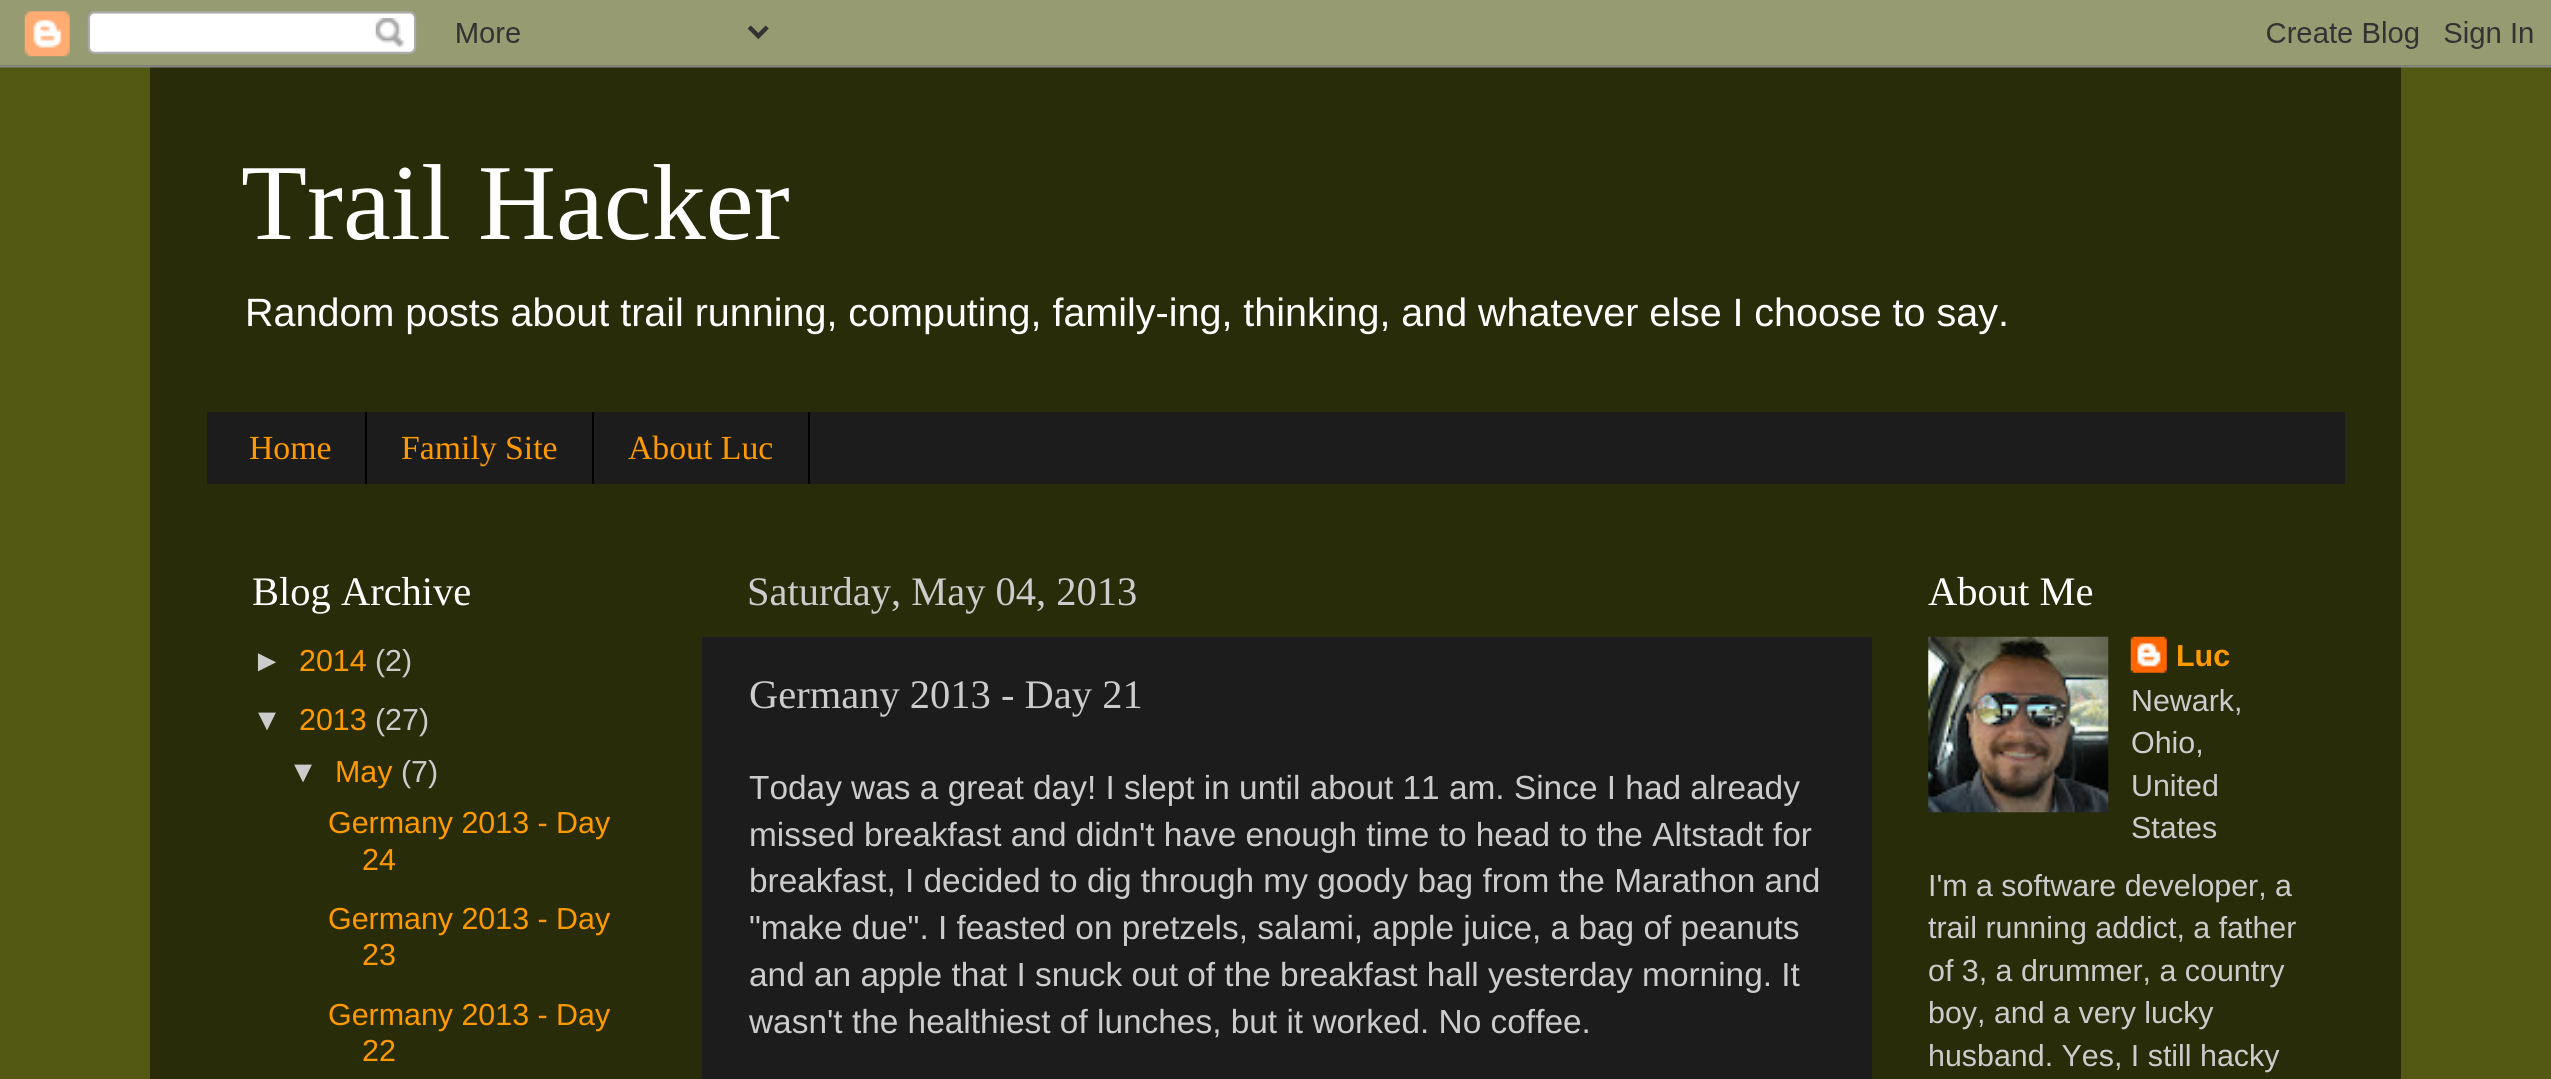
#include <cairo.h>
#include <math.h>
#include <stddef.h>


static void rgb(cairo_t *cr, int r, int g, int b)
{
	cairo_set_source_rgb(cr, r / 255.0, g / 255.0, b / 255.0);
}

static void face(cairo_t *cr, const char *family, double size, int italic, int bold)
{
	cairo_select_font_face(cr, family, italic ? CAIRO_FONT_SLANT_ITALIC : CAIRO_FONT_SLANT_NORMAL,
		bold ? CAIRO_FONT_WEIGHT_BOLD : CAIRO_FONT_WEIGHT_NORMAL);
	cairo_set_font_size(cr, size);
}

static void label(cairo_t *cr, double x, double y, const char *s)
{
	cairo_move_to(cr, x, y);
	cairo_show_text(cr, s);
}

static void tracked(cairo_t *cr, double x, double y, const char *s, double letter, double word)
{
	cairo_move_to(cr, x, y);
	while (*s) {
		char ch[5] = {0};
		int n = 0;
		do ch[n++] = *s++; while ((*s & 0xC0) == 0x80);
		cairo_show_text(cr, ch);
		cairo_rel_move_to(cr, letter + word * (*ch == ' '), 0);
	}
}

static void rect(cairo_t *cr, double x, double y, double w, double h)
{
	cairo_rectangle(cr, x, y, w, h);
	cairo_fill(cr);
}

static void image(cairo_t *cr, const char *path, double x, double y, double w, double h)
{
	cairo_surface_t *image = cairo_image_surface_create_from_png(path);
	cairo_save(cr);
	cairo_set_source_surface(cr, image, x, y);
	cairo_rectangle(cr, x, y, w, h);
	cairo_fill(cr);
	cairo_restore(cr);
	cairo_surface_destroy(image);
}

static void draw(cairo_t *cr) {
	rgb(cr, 81, 88, 18);
	cairo_paint(cr);
	cairo_set_source_rgba(cr, 0, 0, 0, 0.5);
	rect(cr, 150, 67, 2251, 1012);
	image(cr, "image0.png", 0, 0, 2551, 68);
	face(cr, "Liberation Serif", 108, 0, 0);
	rgb(cr, 255, 255, 255);
	label(cr, 241, 239, "Trail Hacker");
	face(cr, "Liberation Sans", 39.5, 0, 0);
	tracked(cr, 245, 326, "Random posts about trail running, computing, family-ing, thinking, and whatever else I choose to say.", 0, -0.1);
	rgb(cr, 28, 28, 28);
	rect(cr, 207, 412, 2138, 72);
	rgb(cr, 0, 0, 0);
	rect(cr, 365, 412, 2, 72);
	face(cr, "Liberation Serif", 33.75, 0, 0);
	rgb(cr, 255, 153, 0);
	label(cr, 249, 459, "Home");
	rgb(cr, 0, 0, 0);
	rect(cr, 592, 412, 2, 72);
	rgb(cr, 255, 153, 0);
	label(cr, 401, 459, "Family Site");
	rgb(cr, 0, 0, 0);
	rect(cr, 808, 412, 2, 72);
	rgb(cr, 255, 153, 0);
	label(cr, 628, 459, "About Luc");
	face(cr, "Liberation Serif", 40.5, 0, 0);
	rgb(cr, 255, 255, 255);
	label(cr, 252, 605, "Blog Archive");
	face(cr, "Liberation Sans", 30.4, 0, 0);
	rgb(cr, 204, 204, 204);
	label(cr, 252, 671, "►");
	rgb(cr, 255, 153, 0);
	label(cr, 299, 671, "2014");
	rgb(cr, 204, 204, 204);
	label(cr, 375, 671, "(2)");
	label(cr, 252, 730, "▼");
	rgb(cr, 255, 153, 0);
	label(cr, 299, 730, "2013");
	rgb(cr, 204, 204, 204);
	label(cr, 375, 730, "(27)");
	label(cr, 288, 782, "▼");
	rgb(cr, 255, 153, 0);
	label(cr, 335, 782, "May");
	rgb(cr, 204, 204, 204);
	label(cr, 401, 782, "(7)");
	rgb(cr, 255, 153, 0);
	label(cr, 328, 833, "Germany 2013 - Day");
	label(cr, 362, 870, "24");
	label(cr, 328, 929, "Germany 2013 - Day");
	label(cr, 362, 965, "23");
	label(cr, 328, 1025, "Germany 2013 - Day");
	label(cr, 362, 1061, "22");
	face(cr, "Liberation Serif", 40.5, 0, 0);
	rgb(cr, 204, 204, 204);
	label(cr, 747, 605, "Saturday, May 04, 2013");
	rgb(cr, 28, 28, 28);
	rect(cr, 702, 637, 1170, 442);
	rgb(cr, 204, 204, 204);
	label(cr, 749, 708, "Germany 2013 - Day 21");
	face(cr, "Liberation Sans", 33.4, 0, 0);
	label(cr, 749, 799, "Today was a great day! I slept in until about 11 am. Since I had already");
	label(cr, 749, 846, "missed breakfast and didn't have enough time to head to the Altstadt for");
	label(cr, 749, 892, "breakfast, I decided to dig through my goody bag from the Marathon and");
	label(cr, 749, 939, "\"make due\". I feasted on pretzels, salami, apple juice, a bag of peanuts");
	label(cr, 749, 986, "and an apple that I snuck out of the breakfast hall yesterday morning. It");
	label(cr, 749, 1033, "wasn't the healthiest of lunches, but it worked. No coffee.");
	face(cr, "Liberation Serif", 40.5, 0, 0);
	rgb(cr, 255, 255, 255);
	label(cr, 1928, 605, "About Me");
	image(cr, "image1.png", 1928, 636, 181, 177);
	image(cr, "image2.png", 2130, 636, 37, 37);
	face(cr, "Liberation Sans", 30.4, 0, 1);
	rgb(cr, 255, 153, 0);
	label(cr, 2176, 666, "Luc");
	face(cr, "Liberation Sans", 30.4, 0, 0);
	rgb(cr, 204, 204, 204);
	label(cr, 2131, 711, "Newark,");
	label(cr, 2131, 753, "Ohio,");
	label(cr, 2131, 796, "United");
	label(cr, 2131, 838, "States");
	label(cr, 1928, 896, "I'm a software developer, a");
	label(cr, 1928, 938, "trail running addict, a father");
	label(cr, 1928, 981, "of 3, a drummer, a country");
	label(cr, 1928, 1023, "boy, and a very lucky");
	label(cr, 1928, 1066, "husband. Yes, I still hacky");
}

int main(void) {
	cairo_surface_t *surface = cairo_image_surface_create(CAIRO_FORMAT_RGB24, 2551, 1079);
	cairo_t *cr = cairo_create(surface);
	cairo_font_options_t *options = cairo_font_options_create();
	cairo_font_options_set_hint_metrics(options, CAIRO_HINT_METRICS_OFF);
	cairo_font_options_set_hint_style(options, CAIRO_HINT_STYLE_NONE);
	cairo_set_font_options(cr, options);
	cairo_set_miter_limit(cr, 4);
	draw(cr);
	cairo_surface_write_to_png(surface, "render.png");
	cairo_font_options_destroy(options);
	cairo_destroy(cr);
	cairo_surface_destroy(surface);
	return 0;
}
